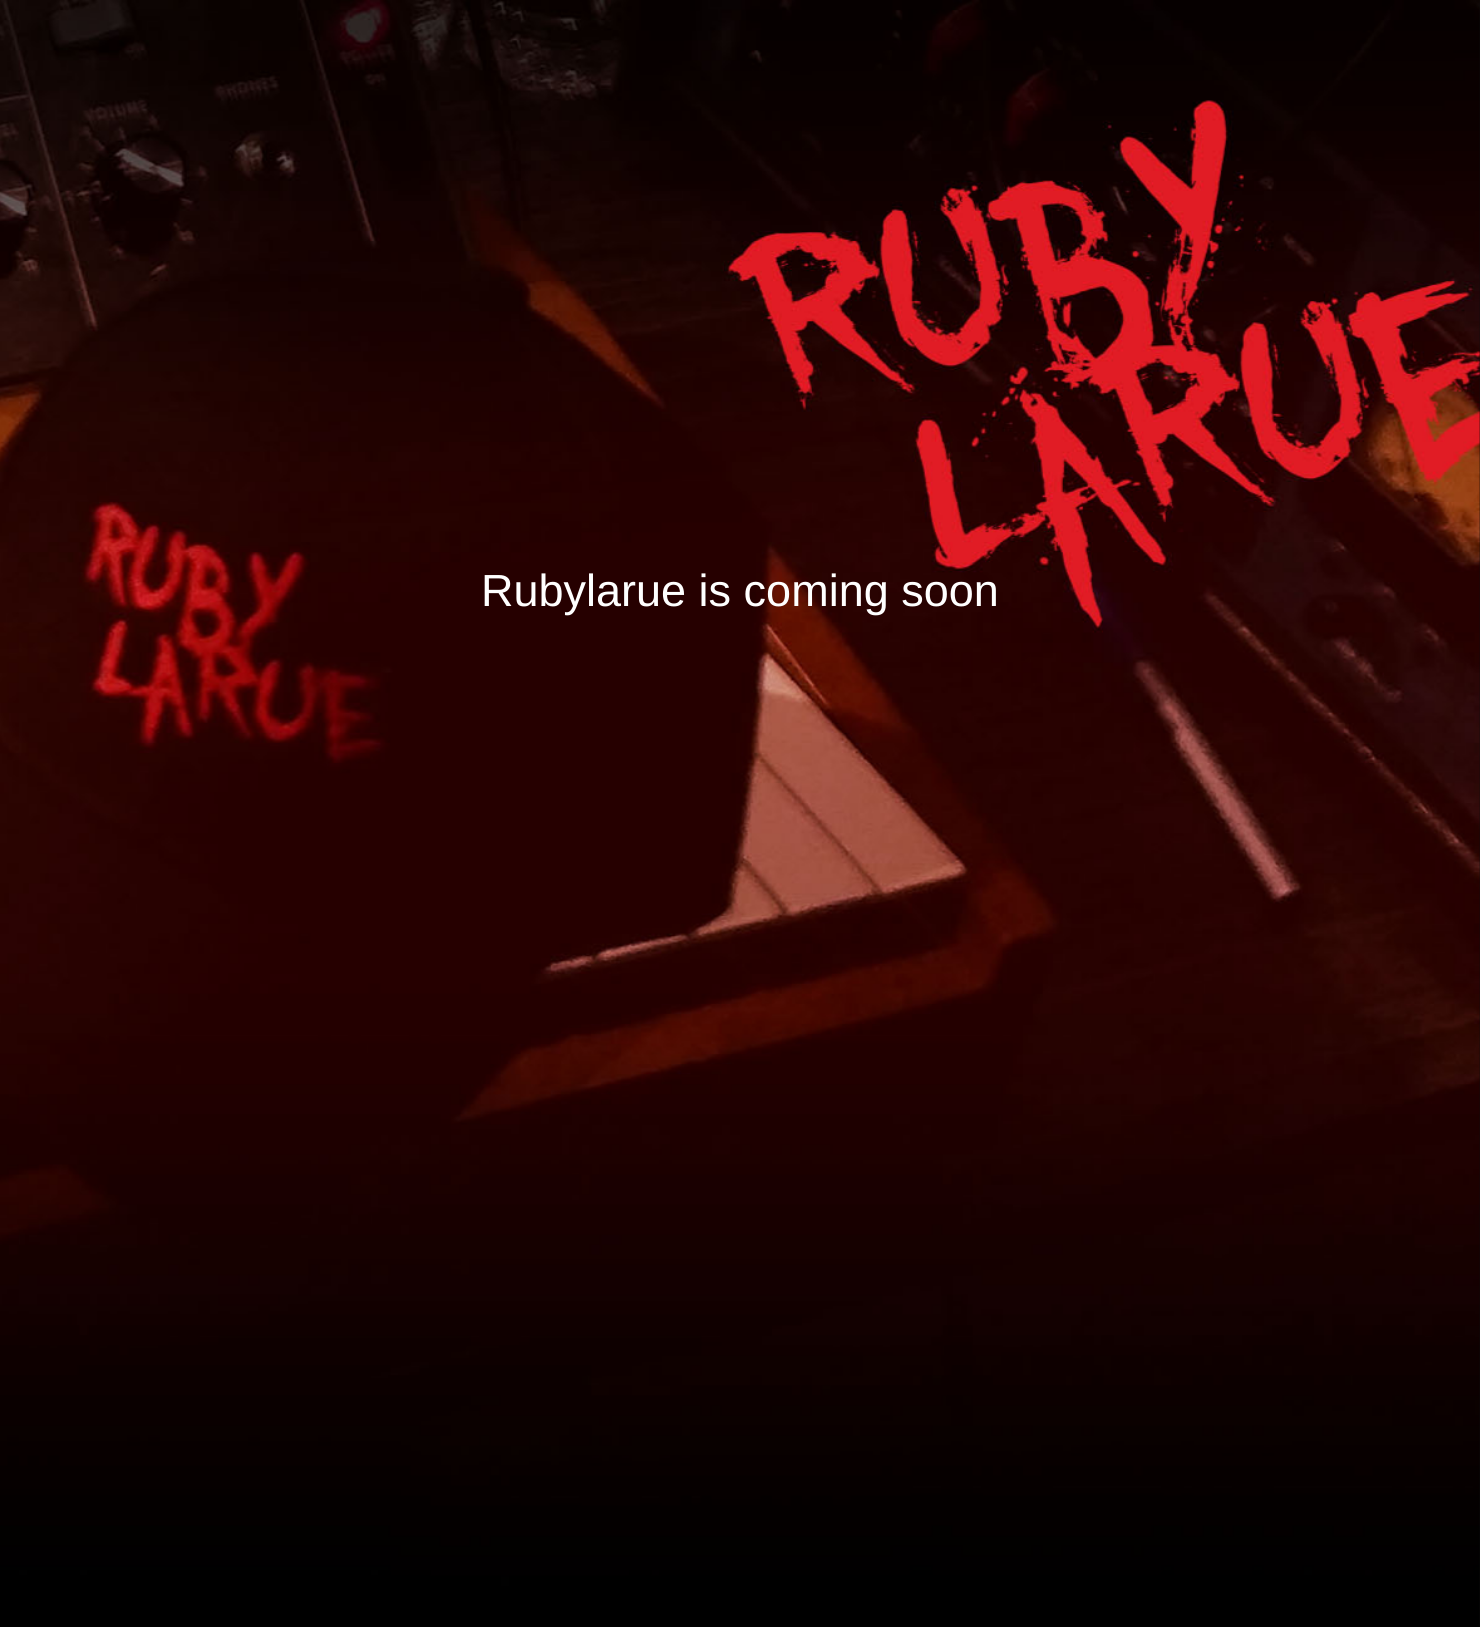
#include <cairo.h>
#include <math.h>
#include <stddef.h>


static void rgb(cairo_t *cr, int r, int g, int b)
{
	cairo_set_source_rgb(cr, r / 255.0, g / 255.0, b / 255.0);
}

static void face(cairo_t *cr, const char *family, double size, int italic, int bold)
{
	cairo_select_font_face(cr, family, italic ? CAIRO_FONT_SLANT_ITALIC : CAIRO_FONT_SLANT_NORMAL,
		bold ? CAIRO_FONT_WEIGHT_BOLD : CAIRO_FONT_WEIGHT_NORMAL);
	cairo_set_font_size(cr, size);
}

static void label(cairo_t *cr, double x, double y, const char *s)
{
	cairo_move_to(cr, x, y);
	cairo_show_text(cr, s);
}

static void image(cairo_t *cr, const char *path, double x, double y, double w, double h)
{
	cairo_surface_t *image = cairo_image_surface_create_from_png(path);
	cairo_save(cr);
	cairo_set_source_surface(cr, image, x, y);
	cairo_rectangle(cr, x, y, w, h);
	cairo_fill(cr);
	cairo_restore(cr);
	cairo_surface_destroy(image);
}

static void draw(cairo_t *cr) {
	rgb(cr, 12, 12, 12);
	cairo_paint(cr);
	image(cr, "image0.png", 0, 0, 1480, 1627);
	face(cr, "Liberation Sans", 45, 0, 0);
	rgb(cr, 255, 255, 255);
	label(cr, 481, 606, "Rubylarue is coming soon");
}

int main(void) {
	cairo_surface_t *surface = cairo_image_surface_create(CAIRO_FORMAT_RGB24, 1480, 1627);
	cairo_t *cr = cairo_create(surface);
	cairo_font_options_t *options = cairo_font_options_create();
	cairo_font_options_set_hint_metrics(options, CAIRO_HINT_METRICS_OFF);
	cairo_font_options_set_hint_style(options, CAIRO_HINT_STYLE_NONE);
	cairo_set_font_options(cr, options);
	cairo_set_miter_limit(cr, 4);
	draw(cr);
	cairo_surface_write_to_png(surface, "render.png");
	cairo_font_options_destroy(options);
	cairo_destroy(cr);
	cairo_surface_destroy(surface);
	return 0;
}
